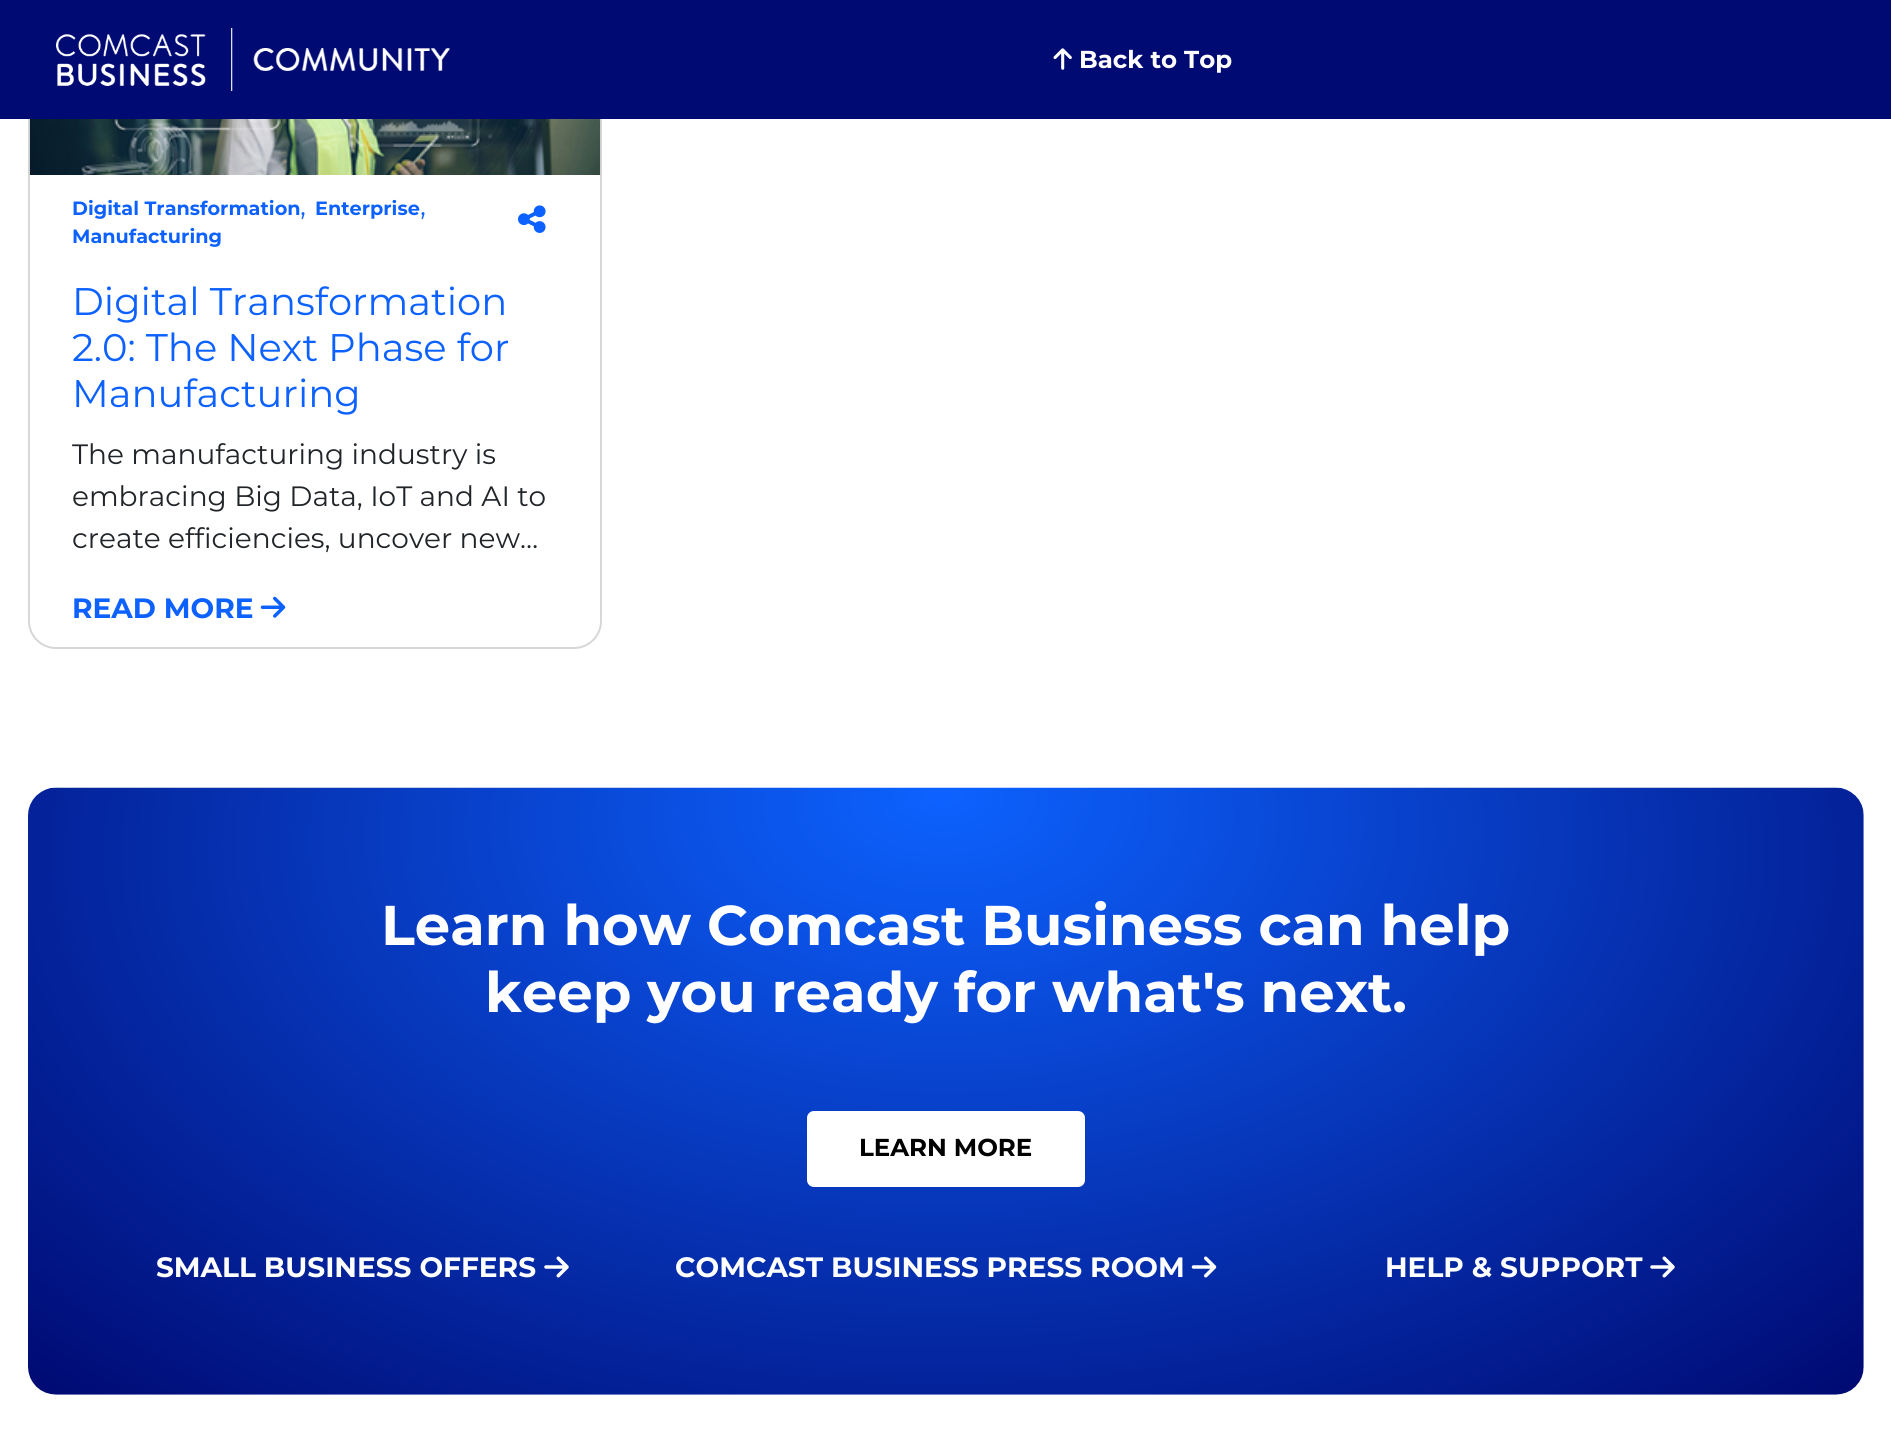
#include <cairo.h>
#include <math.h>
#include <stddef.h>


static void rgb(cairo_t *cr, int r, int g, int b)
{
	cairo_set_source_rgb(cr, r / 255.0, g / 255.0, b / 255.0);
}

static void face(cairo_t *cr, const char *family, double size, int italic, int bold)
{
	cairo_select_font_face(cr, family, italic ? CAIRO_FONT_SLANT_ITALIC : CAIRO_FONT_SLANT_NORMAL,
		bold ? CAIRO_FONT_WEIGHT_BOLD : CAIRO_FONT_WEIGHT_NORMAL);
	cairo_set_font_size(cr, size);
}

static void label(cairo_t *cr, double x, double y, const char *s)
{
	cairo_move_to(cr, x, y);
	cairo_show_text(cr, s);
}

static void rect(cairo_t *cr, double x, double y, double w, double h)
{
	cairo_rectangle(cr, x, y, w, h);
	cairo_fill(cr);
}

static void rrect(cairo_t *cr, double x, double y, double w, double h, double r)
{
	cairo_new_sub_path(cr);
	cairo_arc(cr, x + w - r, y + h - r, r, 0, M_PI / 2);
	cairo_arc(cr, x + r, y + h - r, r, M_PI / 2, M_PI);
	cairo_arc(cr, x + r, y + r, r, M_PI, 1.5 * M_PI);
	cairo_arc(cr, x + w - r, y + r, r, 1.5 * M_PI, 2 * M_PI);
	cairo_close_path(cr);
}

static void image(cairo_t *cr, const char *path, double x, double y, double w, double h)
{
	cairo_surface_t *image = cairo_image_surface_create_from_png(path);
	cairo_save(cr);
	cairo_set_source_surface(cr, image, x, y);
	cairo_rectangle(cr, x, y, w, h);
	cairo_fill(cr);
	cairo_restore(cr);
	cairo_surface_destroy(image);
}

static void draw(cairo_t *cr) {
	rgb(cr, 255, 255, 255);
	cairo_paint(cr);
	rrect(cr, 29, -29, 572, 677, 27);
	rgb(cr, 215, 215, 215);
	cairo_stroke(cr);
	rgb(cr, 0, 10, 115);
	rect(cr, 0, 0, 1891, 119);
	image(cr, "image0.png", 56, 28, 394, 63);
	image(cr, "image1.png", 1053, 48, 19, 22);
	face(cr, "Montserrat", 24.5, 0, 1);
	rgb(cr, 255, 255, 255);
	label(cr, 1079, 68, "Back to Top");
	image(cr, "image2.png", 29, 119, 572, 56);
	face(cr, "Montserrat", 19.25, 0, 1);
	rgb(cr, 13, 98, 255);
	label(cr, 72, 215, "Digital Transformation");
	face(cr, "Montserrat", 28, 0, 0);
	label(cr, 300, 215, ",");
	face(cr, "Montserrat", 19.25, 0, 1);
	label(cr, 315, 215, "Enterprise");
	face(cr, "Montserrat", 28, 0, 0);
	label(cr, 420, 215, ",");
	face(cr, "Montserrat", 19.25, 0, 1);
	label(cr, 72, 243, "Manufacturing");
	image(cr, "image3.png", 518, 205, 28, 28);
	face(cr, "Montserrat", 38.5, 0, 0);
	label(cr, 72, 315, "Digital Transformation");
	label(cr, 72, 361, "2.0: The Next Phase for");
	label(cr, 72, 407, "Manufacturing");
	face(cr, "Montserrat", 28, 0, 0);
	rgb(cr, 33, 37, 41);
	label(cr, 72, 464, "The manufacturing industry is");
	label(cr, 72, 506, "embracing Big Data, IoT and AI to");
	label(cr, 72, 548, "create efficiencies, uncover new…");
	face(cr, "Montserrat", 28, 0, 1);
	rgb(cr, 13, 98, 255);
	label(cr, 72, 618, "READ MORE");
	image(cr, "image4.png", 260, 596, 26, 22);
	image(cr, "image5.png", 28, 787, 1836, 608);
	face(cr, "Montserrat", 56, 0, 1);
	rgb(cr, 255, 255, 255);
	label(cr, 381, 945, "Learn how Comcast Business can help");
	label(cr, 485, 1012, "keep you ready for what's next.");
	rrect(cr, 807, 1111, 278, 76, 7);
	cairo_fill(cr);
	face(cr, "Montserrat", 24.5, 0, 1);
	rgb(cr, 0, 0, 0);
	label(cr, 859, 1156, "LEARN MORE");
	face(cr, "Montserrat", 28, 0, 1);
	rgb(cr, 255, 255, 255);
	label(cr, 156, 1277, "SMALL BUSINESS OFFERS");
	image(cr, "image6.png", 544, 1256, 25, 22);
	label(cr, 675, 1277, "COMCAST BUSINESS PRESS ROOM");
	image(cr, "image7.png", 1191, 1256, 26, 22);
	label(cr, 1385, 1277, "HELP & SUPPORT");
	image(cr, "image8.png", 1650, 1256, 25, 22);
}

int main(void) {
	cairo_surface_t *surface = cairo_image_surface_create(CAIRO_FORMAT_RGB24, 1891, 1452);
	cairo_t *cr = cairo_create(surface);
	cairo_font_options_t *options = cairo_font_options_create();
	cairo_font_options_set_hint_metrics(options, CAIRO_HINT_METRICS_OFF);
	cairo_font_options_set_hint_style(options, CAIRO_HINT_STYLE_NONE);
	cairo_set_font_options(cr, options);
	cairo_set_miter_limit(cr, 4);
	draw(cr);
	cairo_surface_write_to_png(surface, "render.png");
	cairo_font_options_destroy(options);
	cairo_destroy(cr);
	cairo_surface_destroy(surface);
	return 0;
}
